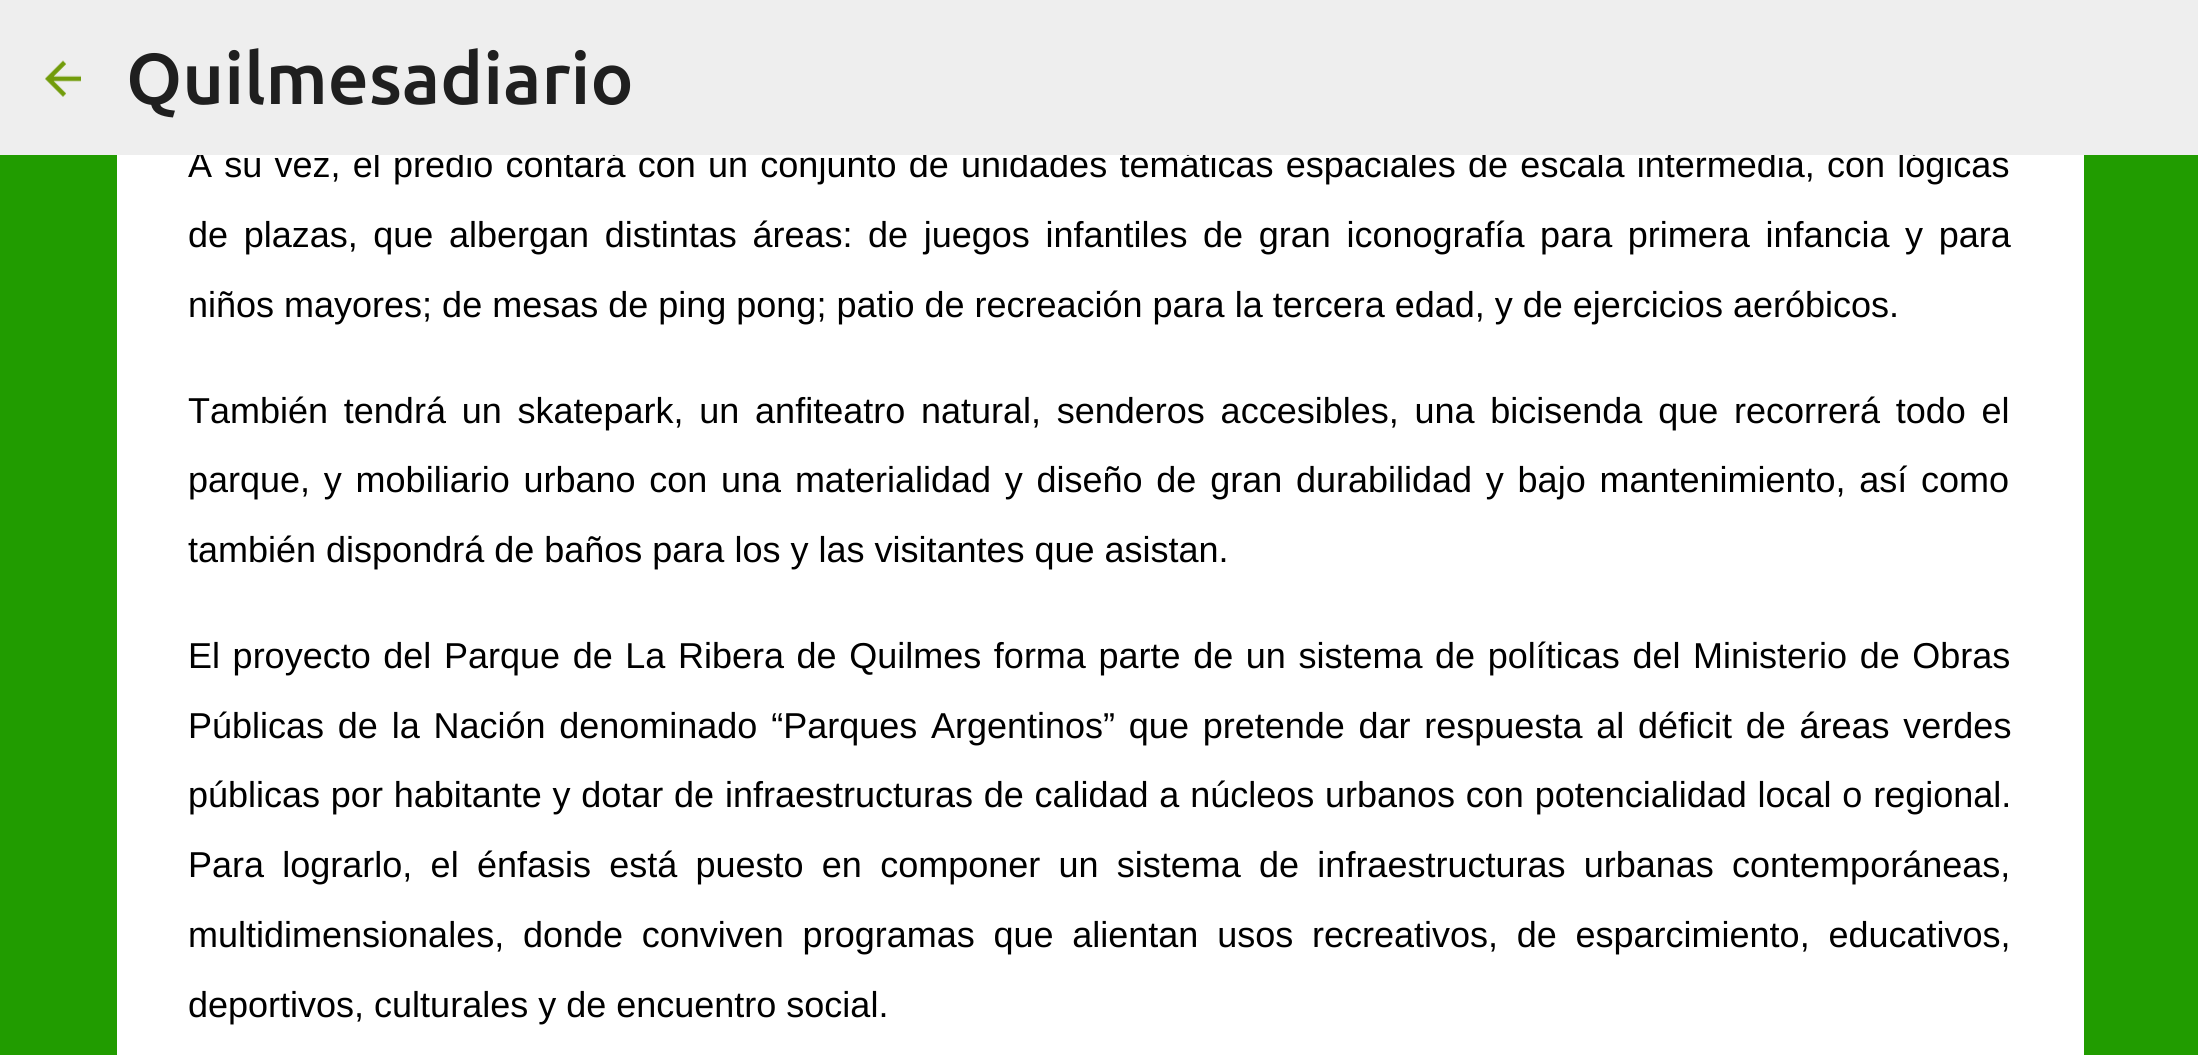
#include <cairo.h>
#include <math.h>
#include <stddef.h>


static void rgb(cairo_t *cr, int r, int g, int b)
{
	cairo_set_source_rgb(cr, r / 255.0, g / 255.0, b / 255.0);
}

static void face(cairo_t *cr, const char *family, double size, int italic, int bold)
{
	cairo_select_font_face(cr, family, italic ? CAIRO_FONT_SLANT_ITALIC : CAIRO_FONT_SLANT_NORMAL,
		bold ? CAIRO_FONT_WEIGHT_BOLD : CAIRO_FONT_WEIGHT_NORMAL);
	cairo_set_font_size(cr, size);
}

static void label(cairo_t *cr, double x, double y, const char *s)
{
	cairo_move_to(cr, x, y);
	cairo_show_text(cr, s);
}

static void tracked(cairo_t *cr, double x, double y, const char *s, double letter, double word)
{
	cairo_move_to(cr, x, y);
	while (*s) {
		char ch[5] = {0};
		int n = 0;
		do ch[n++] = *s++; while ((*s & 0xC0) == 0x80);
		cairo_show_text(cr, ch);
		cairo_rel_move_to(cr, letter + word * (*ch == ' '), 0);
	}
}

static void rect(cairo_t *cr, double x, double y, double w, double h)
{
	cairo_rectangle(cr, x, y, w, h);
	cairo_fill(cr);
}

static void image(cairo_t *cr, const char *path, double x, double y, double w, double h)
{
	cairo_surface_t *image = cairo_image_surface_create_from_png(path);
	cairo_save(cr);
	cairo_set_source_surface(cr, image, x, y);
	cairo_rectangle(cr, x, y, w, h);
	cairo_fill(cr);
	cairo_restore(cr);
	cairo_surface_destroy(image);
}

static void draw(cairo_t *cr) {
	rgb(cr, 33, 156, 0);
	cairo_paint(cr);
	rgb(cr, 255, 255, 255);
	rect(cr, 117, 155, 1967, 900);
	face(cr, "Liberation Sans", 36, 0, 0);
	rgb(cr, 0, 0, 0);
	tracked(cr, 188, 177, "A su vez, el predio contará con un conjunto de unidades temáticas espaciales de escala intermedia, con lógicas", 0, 2.25);
	rgb(cr, 238, 238, 238);
	rect(cr, 0, 0, 2198, 155);
	image(cr, "image0.png", 45, 60, 36, 37);
	face(cr, "Ubuntu Medium", 72, 0, 0);
	rgb(cr, 31, 31, 31);
	label(cr, 126, 104, "Quilmesadiario");
	face(cr, "Liberation Sans", 36, 0, 0);
	rgb(cr, 0, 0, 0);
	tracked(cr, 188, 247, "de plazas, que albergan distintas áreas: de juegos infantiles de gran iconografía para primera infancia y para", 0, 5.6);
	label(cr, 188, 317, "niños mayores; de mesas de ping pong; patio de recreación para la tercera edad, y de ejercicios aeróbicos.");
	tracked(cr, 188, 423, "También tendrá un skatepark, un anfiteatro natural, senderos accesibles, una bicisenda que recorrerá todo el", 0, 5.75);
	tracked(cr, 188, 492, "parque, y mobiliario urbano con una materialidad y diseño de gran durabilidad y bajo mantenimiento, así como", 0, 3.75);
	label(cr, 188, 562, "también dispondrá de baños para los y las visitantes que asistan.");
	tracked(cr, 188, 668, "El proyecto del Parque de La Ribera de Quilmes forma parte de un sistema de políticas del Ministerio de Obras", 0, 2.6);
	tracked(cr, 188, 738, "Públicas de la Nación denominado “Parques Argentinos” que pretende dar respuesta al déficit de áreas verdes", 0, 3.75);
	tracked(cr, 188, 807, "públicas por habitante y dotar de infraestructuras de calidad a núcleos urbanos con potencialidad local o regional.", 0, 0.75);
	tracked(cr, 188, 877, "Para lograrlo, el énfasis está puesto en componer un sistema de infraestructuras urbanas contemporáneas,", 0, 8.25);
	tracked(cr, 188, 947, "multidimensionales, donde conviven programas que alientan usos recreativos, de esparcimiento, educativos,", 0, 8.75);
	label(cr, 188, 1017, "deportivos, culturales y de encuentro social.");
}

int main(void) {
	cairo_surface_t *surface = cairo_image_surface_create(CAIRO_FORMAT_RGB24, 2198, 1055);
	cairo_t *cr = cairo_create(surface);
	cairo_font_options_t *options = cairo_font_options_create();
	cairo_font_options_set_hint_metrics(options, CAIRO_HINT_METRICS_OFF);
	cairo_font_options_set_hint_style(options, CAIRO_HINT_STYLE_NONE);
	cairo_set_font_options(cr, options);
	cairo_set_miter_limit(cr, 4);
	draw(cr);
	cairo_surface_write_to_png(surface, "render.png");
	cairo_font_options_destroy(options);
	cairo_destroy(cr);
	cairo_surface_destroy(surface);
	return 0;
}
